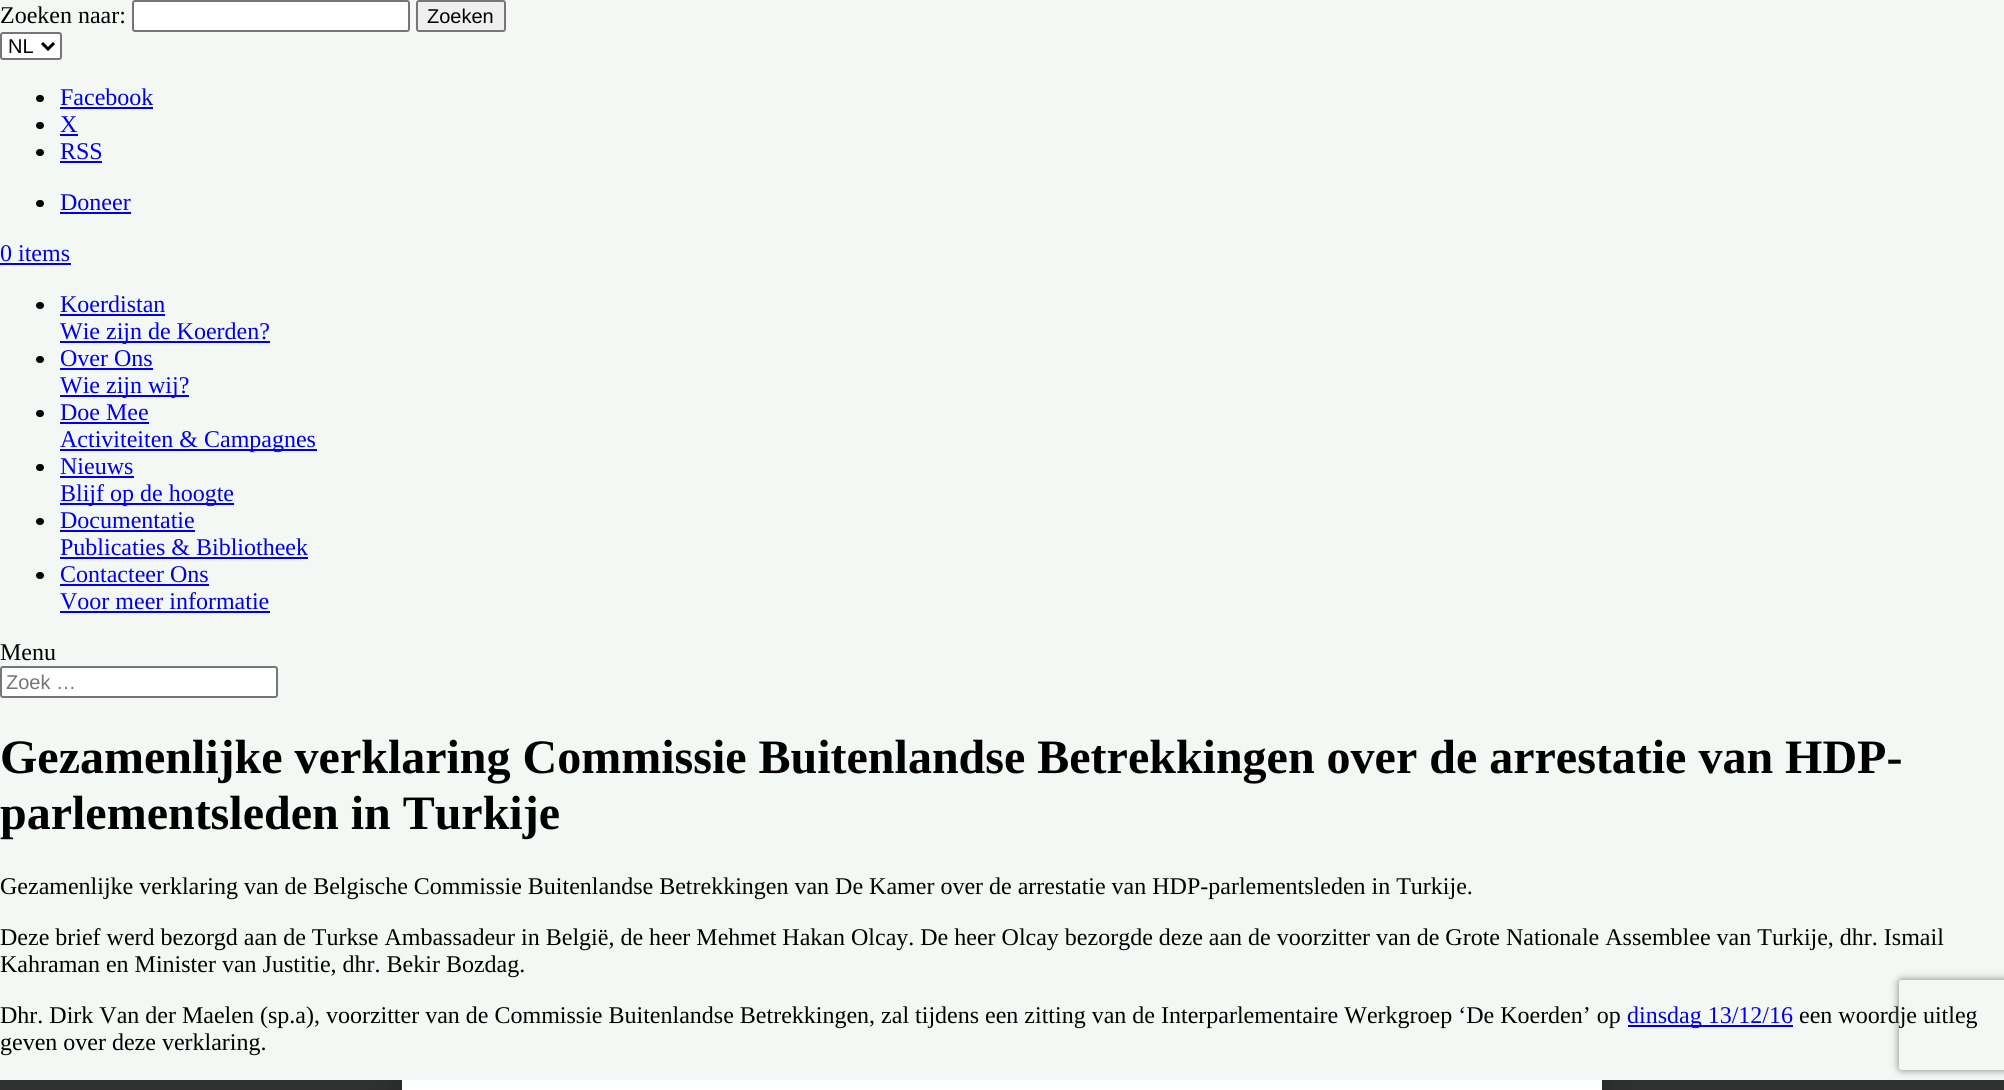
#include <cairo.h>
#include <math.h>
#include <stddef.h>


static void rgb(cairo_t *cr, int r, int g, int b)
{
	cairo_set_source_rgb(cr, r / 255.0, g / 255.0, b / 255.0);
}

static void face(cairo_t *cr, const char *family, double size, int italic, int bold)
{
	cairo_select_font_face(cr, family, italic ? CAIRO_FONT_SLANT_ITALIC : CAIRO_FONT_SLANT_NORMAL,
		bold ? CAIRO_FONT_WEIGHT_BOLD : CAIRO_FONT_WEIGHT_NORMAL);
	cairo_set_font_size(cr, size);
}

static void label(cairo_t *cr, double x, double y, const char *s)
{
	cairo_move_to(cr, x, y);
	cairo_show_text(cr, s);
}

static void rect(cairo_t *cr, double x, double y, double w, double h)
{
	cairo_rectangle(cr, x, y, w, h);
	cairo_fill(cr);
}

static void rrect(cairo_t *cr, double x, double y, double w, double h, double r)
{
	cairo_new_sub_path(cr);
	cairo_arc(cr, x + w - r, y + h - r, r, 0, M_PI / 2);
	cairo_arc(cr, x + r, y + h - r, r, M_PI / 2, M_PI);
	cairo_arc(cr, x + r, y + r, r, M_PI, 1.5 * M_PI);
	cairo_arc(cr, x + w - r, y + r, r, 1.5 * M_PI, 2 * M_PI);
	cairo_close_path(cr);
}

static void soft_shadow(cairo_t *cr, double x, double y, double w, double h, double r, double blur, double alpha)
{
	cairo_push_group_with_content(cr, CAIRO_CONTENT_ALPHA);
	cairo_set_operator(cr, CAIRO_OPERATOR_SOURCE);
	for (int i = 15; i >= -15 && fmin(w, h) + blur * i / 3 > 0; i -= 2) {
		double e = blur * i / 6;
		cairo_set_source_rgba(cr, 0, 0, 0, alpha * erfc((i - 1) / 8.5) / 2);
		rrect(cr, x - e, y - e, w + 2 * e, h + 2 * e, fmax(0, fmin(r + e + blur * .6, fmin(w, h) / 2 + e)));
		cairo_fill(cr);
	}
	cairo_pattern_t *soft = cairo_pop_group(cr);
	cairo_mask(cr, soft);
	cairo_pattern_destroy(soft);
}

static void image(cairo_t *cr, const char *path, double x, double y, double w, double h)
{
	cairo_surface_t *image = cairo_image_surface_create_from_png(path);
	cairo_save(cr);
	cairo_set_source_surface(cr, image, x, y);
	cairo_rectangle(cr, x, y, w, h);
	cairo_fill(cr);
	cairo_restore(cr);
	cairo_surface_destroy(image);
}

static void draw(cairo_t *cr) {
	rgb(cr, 243, 248, 244);
	cairo_paint(cr);
	face(cr, "Liberation Serif", 24, 0, 0);
	rgb(cr, 0, 0, 0);
	label(cr, 0, 23, "Zoeken naar:");
	rgb(cr, 255, 255, 255);
	rrect(cr, 133, 1, 276, 30, 2);
	cairo_fill_preserve(cr);
	rgb(cr, 118, 118, 118);
	cairo_stroke(cr);
	rgb(cr, 239, 239, 239);
	rrect(cr, 417, 1, 88, 30, 2);
	cairo_fill_preserve(cr);
	rgb(cr, 118, 118, 118);
	cairo_stroke(cr);
	face(cr, "Liberation Sans", 20, 0, 0);
	rgb(cr, 0, 0, 0);
	label(cr, 427, 23, "Zoeken");
	rgb(cr, 255, 255, 255);
	rrect(cr, 1, 33, 60, 26, 2);
	cairo_fill_preserve(cr);
	rgb(cr, 118, 118, 118);
	cairo_stroke(cr);
	cairo_new_path(cr);
	cairo_move_to(cr, 42, 43);
	cairo_line_to(cr, 48, 49);
	cairo_line_to(cr, 54, 43);
	rgb(cr, 0, 0, 0);
	cairo_set_line_width(cr, 3);
	cairo_stroke(cr);
	label(cr, 8, 53, "NL");
	rrect(cr, 36, 95, 8, 7, 3.5);
	cairo_fill(cr);
	face(cr, "Liberation Serif", 24, 0, 0);
	rgb(cr, 0, 0, 238);
	label(cr, 60, 105, "Facebook");
	rect(cr, 60, 107, 93, 2);
	rgb(cr, 0, 0, 0);
	rrect(cr, 36, 122, 8, 7, 3.5);
	cairo_fill(cr);
	rgb(cr, 0, 0, 238);
	label(cr, 60, 132, "X");
	rect(cr, 60, 134, 18, 2);
	rgb(cr, 0, 0, 0);
	rrect(cr, 36, 149, 8, 7, 3.5);
	cairo_fill(cr);
	rgb(cr, 0, 0, 238);
	label(cr, 60, 159, "RSS");
	rect(cr, 60, 161, 42, 2);
	rgb(cr, 0, 0, 0);
	rrect(cr, 36, 200, 8, 7, 3.5);
	cairo_fill(cr);
	rgb(cr, 0, 0, 238);
	label(cr, 60, 210, "Doneer");
	rect(cr, 60, 212, 71, 2);
	label(cr, 0, 261, "0 items");
	rect(cr, 0, 263, 71, 2);
	rgb(cr, 0, 0, 0);
	rrect(cr, 36, 302, 8, 7, 3.5);
	cairo_fill(cr);
	rgb(cr, 0, 0, 238);
	label(cr, 60, 312, "Koerdistan");
	rect(cr, 60, 314, 105, 2);
	rect(cr, 60, 341, 210, 2);
	label(cr, 60, 339, "Wie zijn de Koerden?");
	rgb(cr, 0, 0, 0);
	rrect(cr, 36, 356, 8, 7, 3.5);
	cairo_fill(cr);
	rgb(cr, 0, 0, 238);
	label(cr, 60, 366, "Over Ons");
	rect(cr, 60, 368, 93, 2);
	rect(cr, 60, 395, 129, 2);
	label(cr, 60, 393, "Wie zijn wij?");
	rgb(cr, 0, 0, 0);
	rrect(cr, 36, 410, 8, 7, 3.5);
	cairo_fill(cr);
	rgb(cr, 0, 0, 238);
	label(cr, 60, 420, "Doe Mee");
	rect(cr, 60, 422, 89, 2);
	rect(cr, 60, 449, 257, 2);
	label(cr, 60, 447, "Activiteiten & Campagnes");
	rgb(cr, 0, 0, 0);
	rrect(cr, 36, 464, 8, 7, 3.5);
	cairo_fill(cr);
	rgb(cr, 0, 0, 238);
	label(cr, 60, 474, "Nieuws");
	rect(cr, 60, 476, 74, 2);
	rect(cr, 60, 503, 174, 2);
	label(cr, 60, 501, "Blijf op de hoogte");
	rgb(cr, 0, 0, 0);
	rrect(cr, 36, 518, 8, 7, 3.5);
	cairo_fill(cr);
	rgb(cr, 0, 0, 238);
	label(cr, 60, 528, "Documentatie");
	rect(cr, 60, 530, 135, 2);
	label(cr, 60, 555, "Publicaties & Bibliotheek");
	rect(cr, 60, 557, 248, 2);
	rgb(cr, 0, 0, 0);
	rrect(cr, 36, 572, 8, 7, 3.5);
	cairo_fill(cr);
	rgb(cr, 0, 0, 238);
	label(cr, 60, 582, "Contacteer Ons");
	rect(cr, 60, 584, 149, 2);
	label(cr, 60, 609, "Voor meer informatie");
	rect(cr, 60, 611, 210, 2);
	rgb(cr, 0, 0, 0);
	label(cr, 0, 660, "Menu");
	rgb(cr, 255, 255, 255);
	rrect(cr, 1, 667, 276, 30, 2);
	cairo_fill_preserve(cr);
	rgb(cr, 118, 118, 118);
	cairo_set_line_width(cr, 2);
	cairo_stroke(cr);
	face(cr, "Liberation Sans", 20, 0, 0);
	rgb(cr, 117, 117, 117);
	label(cr, 6, 689, "Zoek …");
	face(cr, "Liberation Serif", 48, 0, 1);
	rgb(cr, 0, 0, 0);
	label(cr, 0, 773, "Gezamenlijke verklaring Commissie Buitenlandse Betrekkingen over de arrestatie van HDP-");
	label(cr, 0, 829, "parlementsleden in Turkije");
	face(cr, "Liberation Serif", 24, 0, 0);
	label(cr, 0, 894, "Gezamenlijke verklaring van de Belgische Commissie Buitenlandse Betrekkingen van De Kamer over de arrestatie van HDP-parlementsleden in Turkije.");
	label(cr, 0, 945, "Deze brief werd bezorgd aan de Turkse Ambassadeur in België, de heer Mehmet Hakan Olcay. De heer Olcay bezorgde deze aan de voorzitter van de Grote Nationale Assemblee van Turkije, dhr. Ismail");
	label(cr, 0, 972, "Kahraman en Minister van Justitie, dhr. Bekir Bozdag.");
	label(cr, 0, 1023, "Dhr. Dirk Van der Maelen (sp.a), voorzitter van de Commissie Buitenlandse Betrekkingen, zal tijdens een zitting van de Interparlementaire Werkgroep ‘De Koerden’ op");
	rgb(cr, 0, 0, 238);
	rect(cr, 1628, 1025, 165, 2);
	label(cr, 1627, 1023, "dinsdag 13/12/16");
	rgb(cr, 0, 0, 0);
	label(cr, 1799, 1023, "een woordje uitleg");
	label(cr, 0, 1050, "geven over deze verklaring.");
	image(cr, "image0.png", 0, 1080, 2004, 10);
	cairo_save(cr);
	cairo_set_fill_rule(cr, CAIRO_FILL_RULE_EVEN_ODD);
	cairo_new_path(cr);
	cairo_move_to(cr, 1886, 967);
	cairo_line_to(cr, 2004, 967);
	cairo_line_to(cr, 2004, 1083);
	cairo_line_to(cr, 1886, 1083);
	cairo_close_path(cr);
	cairo_move_to(cr, 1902, 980);
	cairo_line_to(cr, 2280, 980);
	cairo_curve_to(cr, 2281.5, 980, 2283, 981.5, 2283, 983);
	cairo_line_to(cr, 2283, 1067);
	cairo_curve_to(cr, 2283, 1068.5, 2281.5, 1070, 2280, 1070);
	cairo_line_to(cr, 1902, 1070);
	cairo_curve_to(cr, 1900.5, 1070, 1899, 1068.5, 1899, 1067);
	cairo_line_to(cr, 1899, 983);
	cairo_curve_to(cr, 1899, 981.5, 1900.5, 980, 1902, 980);
	cairo_close_path(cr);
	cairo_clip(cr);
	rgb(cr, 128, 128, 128);
	soft_shadow(cr, 1899, 980, 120, 90, 3, 4, 1);
	cairo_restore(cr);
}

int main(void) {
	cairo_surface_t *surface = cairo_image_surface_create(CAIRO_FORMAT_RGB24, 2004, 1090);
	cairo_t *cr = cairo_create(surface);
	cairo_font_options_t *options = cairo_font_options_create();
	cairo_font_options_set_hint_metrics(options, CAIRO_HINT_METRICS_OFF);
	cairo_font_options_set_hint_style(options, CAIRO_HINT_STYLE_NONE);
	cairo_set_font_options(cr, options);
	cairo_set_miter_limit(cr, 4);
	draw(cr);
	cairo_surface_write_to_png(surface, "render.png");
	cairo_font_options_destroy(options);
	cairo_destroy(cr);
	cairo_surface_destroy(surface);
	return 0;
}
